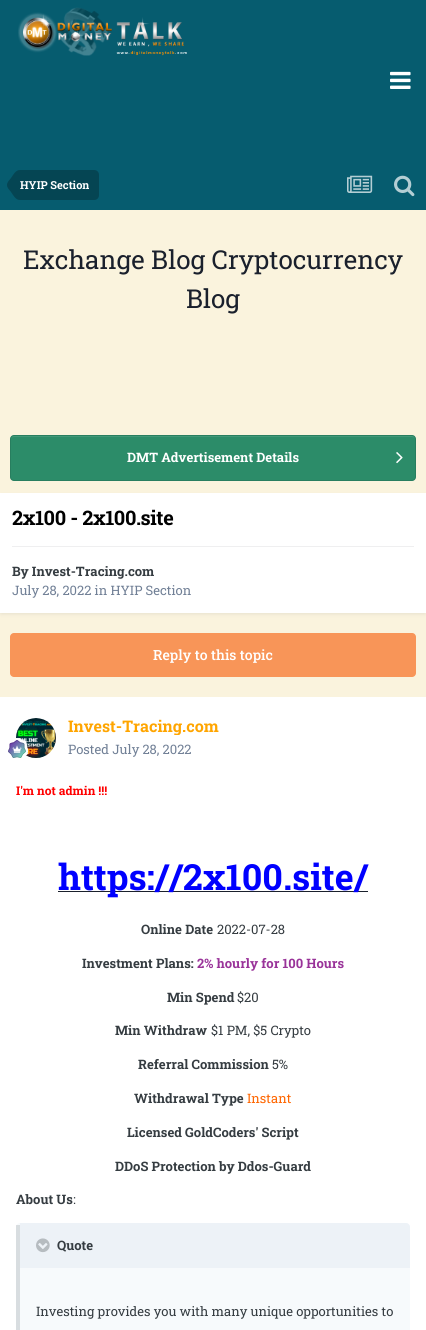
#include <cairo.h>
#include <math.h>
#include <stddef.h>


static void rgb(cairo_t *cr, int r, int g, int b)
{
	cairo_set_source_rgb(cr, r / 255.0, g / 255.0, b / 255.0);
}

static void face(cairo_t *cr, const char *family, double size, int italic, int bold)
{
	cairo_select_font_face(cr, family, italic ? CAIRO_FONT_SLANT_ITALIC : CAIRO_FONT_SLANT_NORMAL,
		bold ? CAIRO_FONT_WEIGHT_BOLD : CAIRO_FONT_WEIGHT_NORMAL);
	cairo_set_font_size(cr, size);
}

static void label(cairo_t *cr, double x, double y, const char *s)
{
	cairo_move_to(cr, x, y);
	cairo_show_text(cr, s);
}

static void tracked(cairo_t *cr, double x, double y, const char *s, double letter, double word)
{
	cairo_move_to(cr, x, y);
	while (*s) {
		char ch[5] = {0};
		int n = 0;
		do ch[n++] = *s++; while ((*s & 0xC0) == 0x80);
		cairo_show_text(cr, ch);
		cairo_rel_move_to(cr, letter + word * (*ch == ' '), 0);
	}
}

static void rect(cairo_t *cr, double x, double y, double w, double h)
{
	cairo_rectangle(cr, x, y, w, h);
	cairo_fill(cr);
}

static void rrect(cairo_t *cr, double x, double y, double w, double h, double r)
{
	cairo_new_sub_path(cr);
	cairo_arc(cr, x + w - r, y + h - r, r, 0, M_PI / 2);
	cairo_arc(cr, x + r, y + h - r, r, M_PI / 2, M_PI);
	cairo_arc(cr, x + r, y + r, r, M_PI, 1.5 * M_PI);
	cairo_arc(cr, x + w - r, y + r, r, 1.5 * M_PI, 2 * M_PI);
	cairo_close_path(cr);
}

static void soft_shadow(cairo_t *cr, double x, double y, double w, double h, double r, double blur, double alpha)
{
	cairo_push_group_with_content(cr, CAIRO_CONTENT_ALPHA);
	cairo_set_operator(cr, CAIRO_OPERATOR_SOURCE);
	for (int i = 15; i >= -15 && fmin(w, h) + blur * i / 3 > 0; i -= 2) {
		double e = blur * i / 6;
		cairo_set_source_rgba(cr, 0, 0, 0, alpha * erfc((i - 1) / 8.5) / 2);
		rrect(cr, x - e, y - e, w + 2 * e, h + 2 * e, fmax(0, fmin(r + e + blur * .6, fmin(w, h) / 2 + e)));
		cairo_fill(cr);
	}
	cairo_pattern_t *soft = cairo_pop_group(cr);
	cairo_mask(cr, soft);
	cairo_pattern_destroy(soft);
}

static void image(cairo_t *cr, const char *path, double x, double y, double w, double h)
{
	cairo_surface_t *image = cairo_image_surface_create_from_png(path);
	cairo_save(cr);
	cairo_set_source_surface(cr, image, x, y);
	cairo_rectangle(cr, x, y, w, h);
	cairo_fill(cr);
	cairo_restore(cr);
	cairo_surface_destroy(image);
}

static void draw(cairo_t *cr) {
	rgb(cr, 250, 243, 221);
	cairo_paint(cr);
	rgb(cr, 6, 92, 111);
	rect(cr, 0, 0, 426, 210);
	image(cr, "image0.png", 18, 7, 169, 49);
	image(cr, "image1.png", 390, 71, 21, 18);
	rgb(cr, 5, 69, 83);
	cairo_new_path(cr);
	cairo_move_to(cr, 20, 170);
	cairo_line_to(cr, 94, 170);
	cairo_curve_to(cr, 97, 170, 99, 172, 99, 175);
	cairo_line_to(cr, 99, 195);
	cairo_curve_to(cr, 99, 198, 97, 200, 94, 200);
	cairo_line_to(cr, 20, 200);
	cairo_close_path(cr);
	cairo_fill(cr);
	cairo_new_path(cr);
	cairo_move_to(cr, 20, 185);
	cairo_line_to(cr, 20, 200);
	cairo_curve_to(cr, 15.5, 200, 13.5, 195.5, 11, 192);
	cairo_curve_to(cr, 9.5, 190, 7, 188, 7, 185);
	cairo_close_path(cr);
	cairo_move_to(cr, 20, 185);
	cairo_line_to(cr, 7, 185);
	cairo_curve_to(cr, 7, 182, 9.5, 180, 11, 178);
	cairo_curve_to(cr, 13.5, 174.5, 15.5, 170, 20, 170);
	cairo_close_path(cr);
	cairo_fill(cr);
	face(cr, "Roboto Slab", 11, 0, 1);
	rgb(cr, 255, 255, 255);
	label(cr, 20, 189, "HYIP Section");
	image(cr, "image2.png", 347, 175, 26, 18);
	image(cr, "image3.png", 394, 175, 21, 22);
	face(cr, "Roboto Slab", 26, 0, 0);
	rgb(cr, 26, 32, 44);
	label(cr, 23, 269, "Exchange Blog Cryptocurrency");
	label(cr, 186, 308, "Blog");
	rgb(cr, 44, 140, 105);
	rrect(cr, 10, 435, 406, 46, 4);
	cairo_fill(cr);
	rgb(cr, 65, 152, 120);
	cairo_new_path(cr);
	cairo_move_to(cr, 14, 437);
	cairo_line_to(cr, 412, 437);
	cairo_curve_to(cr, 414, 437, 415, 438, 415, 440);
	cairo_curve_to(cr, 415, 438, 414, 436, 412, 436);
	cairo_line_to(cr, 14, 436);
	cairo_curve_to(cr, 12, 436, 11, 438, 11, 440);
	cairo_curve_to(cr, 11, 438, 12, 437, 14, 437);
	cairo_close_path(cr);
	cairo_fill(cr);
	rrect(cr, 10.5, 435.5, 405, 45, 3.5);
	cairo_set_source_rgba(cr, 0, 0, 0, 0.1);
	cairo_set_line_width(cr, 1);
	cairo_stroke(cr);
	face(cr, "Roboto Slab", 13, 0, 1);
	rgb(cr, 255, 255, 255);
	label(cr, 127, 462, "DMT Advertisement Details");
	image(cr, "image4.png", 396, 452, 7, 12);
	rgb(cr, 45, 55, 72);
	soft_shadow(cr, 1, 496, 424, 118, 0, 2, 0.1);
	rgb(cr, 255, 255, 255);
	rect(cr, 0, 493, 426, 120);
	face(cr, "Roboto Slab", 20, 0, 1);
	rgb(cr, 0, 0, 0);
	tracked(cr, 12, 525, "2x100 - 2x100.site", -0.4, 0);
	rgb(cr, 239, 239, 240);
	rect(cr, 12, 546, 402, 1);
	face(cr, "Roboto Slab", 13, 0, 1);
	rgb(cr, 53, 60, 65);
	label(cr, 12, 576, "By Invest-Tracing.com");
	face(cr, "Roboto Slab", 13, 0, 0);
	rgb(cr, 113, 128, 150);
	label(cr, 12, 595, "July 28, 2022 in HYIP Section");
	rgb(cr, 248, 149, 88);
	rrect(cr, 10, 633, 406, 44, 4);
	cairo_fill(cr);
	face(cr, "Roboto Slab Medium", 14, 0, 0);
	rgb(cr, 255, 255, 255);
	label(cr, 153, 660, "Reply to this topic");
	rect(cr, 0, 697, 426, 633);
	image(cr, "image5.png", 16, 718, 40, 40);
	image(cr, "image6.png", 8, 738, 20, 20);
	cairo_save(cr);
	cairo_rectangle(cr, 68, 717, 151, 18);
	cairo_clip(cr);
	face(cr, "Roboto Slab", 16, 0, 1);
	rgb(cr, 255, 165, 0);
	label(cr, 68, 732, "Invest-Tracing.com");
	cairo_restore(cr);
	face(cr, "Roboto Slab", 13, 0, 0);
	rgb(cr, 113, 128, 150);
	label(cr, 68, 754, "Posted July 28, 2022");
	face(cr, "Roboto Slab", 12, 0, 1);
	rgb(cr, 255, 0, 0);
	label(cr, 16, 795, "I'm not admin !!!");
	rgb(cr, 26, 32, 44);
	rect(cr, 58, 891, 310, 1);
	face(cr, "Roboto Slab", 36, 0, 1);
	rgb(cr, 0, 0, 255);
	label(cr, 58, 890, "https://2x100.site/");
	face(cr, "Roboto Slab", 13, 0, 1);
	rgb(cr, 53, 60, 65);
	label(cr, 141, 934, "Online Date");
	face(cr, "Roboto Slab", 13, 0, 0);
	label(cr, 217, 934, "2022-07-28");
	face(cr, "Roboto Slab", 13, 0, 1);
	label(cr, 82, 968, "Investment Plans:");
	rgb(cr, 153, 51, 153);
	label(cr, 197, 968, "2% hourly for 100 Hours");
	rgb(cr, 53, 60, 65);
	label(cr, 167, 1002, "Min Spend");
	face(cr, "Roboto Slab", 13, 0, 0);
	label(cr, 237, 1002, "$20");
	face(cr, "Roboto Slab", 13, 0, 1);
	label(cr, 115, 1035, "Min Withdraw");
	face(cr, "Roboto Slab", 13, 0, 0);
	label(cr, 211, 1035, "$1 PM, $5 Crypto");
	face(cr, "Roboto Slab", 13, 0, 1);
	label(cr, 138, 1069, "Referral Commission");
	face(cr, "Roboto Slab", 13, 0, 0);
	label(cr, 272, 1069, "5%");
	face(cr, "Roboto Slab", 13, 0, 1);
	label(cr, 134, 1103, "Withdrawal Type");
	face(cr, "Roboto Slab", 13, 0, 0);
	rgb(cr, 255, 102, 0);
	label(cr, 247, 1103, "Instant");
	face(cr, "Roboto Slab", 13, 0, 1);
	rgb(cr, 53, 60, 65);
	label(cr, 127, 1137, "Licensed GoldCoders' Script");
	label(cr, 115, 1171, "DDoS Protection by Ddos-Guard");
	label(cr, 16, 1204, "About Us");
	face(cr, "Roboto Slab", 13, 0, 0);
	label(cr, 73, 1204, ":");
	rgb(cr, 247, 250, 252);
	rrect(cr, 16, 1223, 394, 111, 4);
	cairo_fill(cr);
	cairo_set_source_rgba(cr, 0.176, 0.216, 0.282, 0.15);
	rect(cr, 16, 1225, 4, 105);
	rgb(cr, 237, 242, 247);
	cairo_new_path(cr);
	cairo_move_to(cr, 20, 1223);
	cairo_line_to(cr, 406, 1223);
	cairo_curve_to(cr, 408, 1223, 410, 1225, 410, 1227);
	cairo_line_to(cr, 410, 1268);
	cairo_line_to(cr, 20, 1268);
	cairo_close_path(cr);
	cairo_fill(cr);
	image(cr, "image7.png", 36, 1238, 14, 15);
	face(cr, "Roboto Slab", 13, 0, 1);
	rgb(cr, 53, 60, 65);
	label(cr, 57, 1250, "Quote");
	face(cr, "Roboto Slab", 13, 0, 0);
	label(cr, 36, 1316, "Investing provides you with many unique opportunities to");
}

int main(void) {
	cairo_surface_t *surface = cairo_image_surface_create(CAIRO_FORMAT_RGB24, 426, 1330);
	cairo_t *cr = cairo_create(surface);
	cairo_font_options_t *options = cairo_font_options_create();
	cairo_font_options_set_hint_metrics(options, CAIRO_HINT_METRICS_OFF);
	cairo_font_options_set_hint_style(options, CAIRO_HINT_STYLE_NONE);
	cairo_set_font_options(cr, options);
	cairo_set_miter_limit(cr, 4);
	draw(cr);
	cairo_surface_write_to_png(surface, "render.png");
	cairo_font_options_destroy(options);
	cairo_destroy(cr);
	cairo_surface_destroy(surface);
	return 0;
}
